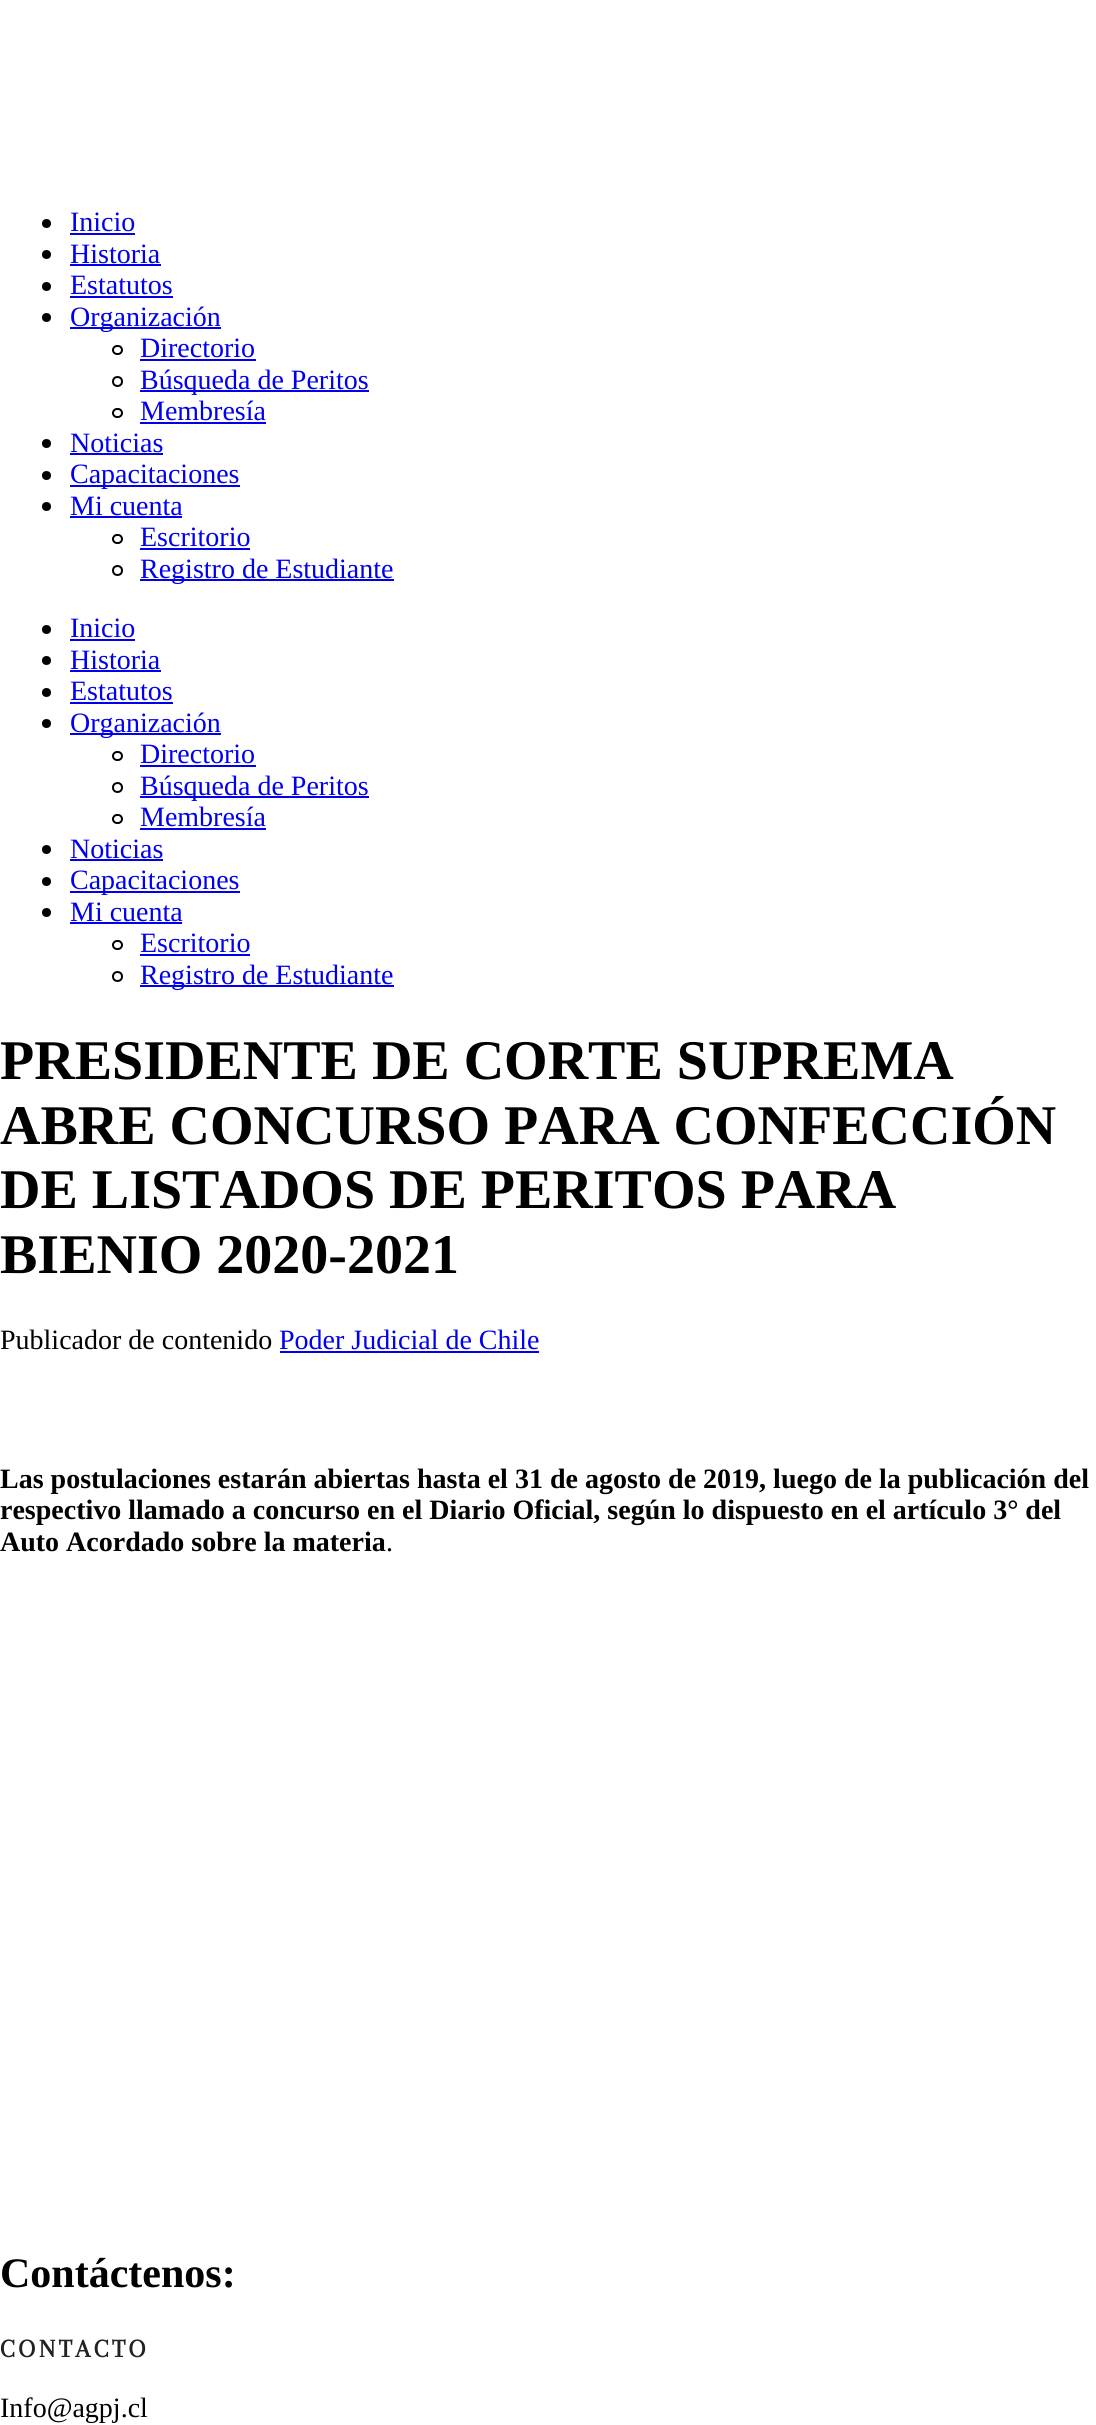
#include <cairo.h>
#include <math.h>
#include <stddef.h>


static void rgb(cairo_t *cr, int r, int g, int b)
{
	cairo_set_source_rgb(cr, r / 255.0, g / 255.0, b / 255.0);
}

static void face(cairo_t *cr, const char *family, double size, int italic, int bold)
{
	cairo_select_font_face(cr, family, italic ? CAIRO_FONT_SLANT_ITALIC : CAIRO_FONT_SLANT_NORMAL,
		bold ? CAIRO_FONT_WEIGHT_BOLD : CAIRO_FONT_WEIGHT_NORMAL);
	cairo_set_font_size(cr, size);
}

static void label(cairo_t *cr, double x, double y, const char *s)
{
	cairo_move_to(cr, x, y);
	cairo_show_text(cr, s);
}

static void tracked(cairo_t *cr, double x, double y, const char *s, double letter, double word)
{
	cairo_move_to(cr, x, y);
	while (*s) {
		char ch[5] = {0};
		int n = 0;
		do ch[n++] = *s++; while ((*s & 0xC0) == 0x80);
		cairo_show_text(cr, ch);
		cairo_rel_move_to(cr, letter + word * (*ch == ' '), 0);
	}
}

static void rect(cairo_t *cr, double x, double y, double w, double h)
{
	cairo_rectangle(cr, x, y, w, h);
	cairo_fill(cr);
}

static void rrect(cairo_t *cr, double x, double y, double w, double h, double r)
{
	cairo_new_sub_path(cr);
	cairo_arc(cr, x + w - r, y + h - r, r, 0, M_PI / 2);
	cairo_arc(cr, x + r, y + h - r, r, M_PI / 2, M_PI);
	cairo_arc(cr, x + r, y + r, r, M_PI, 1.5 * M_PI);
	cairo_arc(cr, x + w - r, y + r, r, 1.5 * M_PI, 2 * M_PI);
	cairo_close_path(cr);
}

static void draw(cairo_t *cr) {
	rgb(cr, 255, 255, 255);
	cairo_paint(cr);
	rgb(cr, 0, 0, 0);
	cairo_arc(cr, 46.5, 223.5, 4.5, 0, 2 * M_PI);
	cairo_fill(cr);
	face(cr, "Liberation Serif", 28, 0, 0);
	rgb(cr, 0, 0, 238);
	label(cr, 70, 231, "Inicio");
	rect(cr, 70, 233, 65, 2);
	rgb(cr, 0, 0, 0);
	cairo_new_path(cr);
	cairo_arc(cr, 46.5, 254.5, 4.5, 0, 2 * M_PI);
	cairo_fill(cr);
	rgb(cr, 0, 0, 238);
	label(cr, 70, 263, "Historia");
	rect(cr, 70, 264, 91, 2);
	rgb(cr, 0, 0, 0);
	cairo_new_path(cr);
	cairo_arc(cr, 46.5, 286.5, 4.5, 0, 2 * M_PI);
	cairo_fill(cr);
	rgb(cr, 0, 0, 238);
	label(cr, 70, 294, "Estatutos");
	rect(cr, 70, 296, 103, 2);
	rgb(cr, 0, 0, 0);
	cairo_new_path(cr);
	cairo_arc(cr, 46.5, 317.5, 4.5, 0, 2 * M_PI);
	cairo_fill(cr);
	rgb(cr, 0, 0, 238);
	rect(cr, 70, 327, 151, 2);
	label(cr, 70, 326, "Organización");
	rrect(cr, 113, 346, 9, 8, 4);
	rgb(cr, 0, 0, 0);
	cairo_stroke(cr);
	rgb(cr, 0, 0, 238);
	label(cr, 140, 357, "Directorio");
	rect(cr, 140, 359, 116, 2);
	cairo_new_path(cr);
	cairo_arc(cr, 117.5, 381.5, 4.5, 0, 2 * M_PI);
	rgb(cr, 0, 0, 0);
	cairo_stroke(cr);
	rgb(cr, 0, 0, 238);
	rect(cr, 140, 390, 229, 2);
	label(cr, 140, 389, "Búsqueda de Peritos");
	rrect(cr, 113, 409, 9, 8, 4);
	rgb(cr, 0, 0, 0);
	cairo_stroke(cr);
	rgb(cr, 0, 0, 238);
	label(cr, 140, 420, "Membresía");
	rect(cr, 140, 422, 126, 2);
	rgb(cr, 0, 0, 0);
	cairo_new_path(cr);
	cairo_arc(cr, 46.5, 443.5, 4.5, 0, 2 * M_PI);
	cairo_fill(cr);
	rgb(cr, 0, 0, 238);
	label(cr, 70, 452, "Noticias");
	rect(cr, 70, 453, 93, 2);
	rgb(cr, 0, 0, 0);
	cairo_new_path(cr);
	cairo_arc(cr, 46.5, 475.5, 4.5, 0, 2 * M_PI);
	cairo_fill(cr);
	rgb(cr, 0, 0, 238);
	rect(cr, 70, 485, 170, 2);
	label(cr, 70, 483, "Capacitaciones");
	rgb(cr, 0, 0, 0);
	cairo_new_path(cr);
	cairo_arc(cr, 46.5, 506.5, 4.5, 0, 2 * M_PI);
	cairo_fill(cr);
	rgb(cr, 0, 0, 238);
	label(cr, 70, 515, "Mi cuenta");
	rect(cr, 70, 516, 112, 2);
	rrect(cr, 113, 535, 9, 8, 4);
	rgb(cr, 0, 0, 0);
	cairo_stroke(cr);
	rgb(cr, 0, 0, 238);
	label(cr, 140, 546, "Escritorio");
	rect(cr, 140, 548, 110, 2);
	cairo_new_path(cr);
	cairo_arc(cr, 117.5, 570.5, 4.5, 0, 2 * M_PI);
	rgb(cr, 0, 0, 0);
	cairo_stroke(cr);
	rgb(cr, 0, 0, 238);
	rect(cr, 140, 579, 254, 2);
	label(cr, 140, 578, "Registro de Estudiante");
	rgb(cr, 0, 0, 0);
	cairo_new_path(cr);
	cairo_arc(cr, 46.5, 629.5, 4.5, 0, 2 * M_PI);
	cairo_fill(cr);
	rgb(cr, 0, 0, 238);
	label(cr, 70, 637, "Inicio");
	rect(cr, 70, 639, 65, 2);
	rgb(cr, 0, 0, 0);
	cairo_new_path(cr);
	cairo_arc(cr, 46.5, 660.5, 4.5, 0, 2 * M_PI);
	cairo_fill(cr);
	rgb(cr, 0, 0, 238);
	label(cr, 70, 669, "Historia");
	rect(cr, 70, 670, 91, 2);
	rgb(cr, 0, 0, 0);
	cairo_new_path(cr);
	cairo_arc(cr, 46.5, 692.5, 4.5, 0, 2 * M_PI);
	cairo_fill(cr);
	rgb(cr, 0, 0, 238);
	label(cr, 70, 700, "Estatutos");
	rect(cr, 70, 702, 103, 2);
	rgb(cr, 0, 0, 0);
	cairo_new_path(cr);
	cairo_arc(cr, 46.5, 723.5, 4.5, 0, 2 * M_PI);
	cairo_fill(cr);
	rgb(cr, 0, 0, 238);
	rect(cr, 70, 733, 151, 2);
	label(cr, 70, 732, "Organización");
	rrect(cr, 113, 752, 9, 8, 4);
	rgb(cr, 0, 0, 0);
	cairo_stroke(cr);
	rgb(cr, 0, 0, 238);
	label(cr, 140, 763, "Directorio");
	rect(cr, 140, 765, 116, 2);
	cairo_new_path(cr);
	cairo_arc(cr, 117.5, 787.5, 4.5, 0, 2 * M_PI);
	rgb(cr, 0, 0, 0);
	cairo_stroke(cr);
	rgb(cr, 0, 0, 238);
	rect(cr, 140, 796, 229, 2);
	label(cr, 140, 795, "Búsqueda de Peritos");
	rrect(cr, 113, 815, 9, 8, 4);
	rgb(cr, 0, 0, 0);
	cairo_stroke(cr);
	rgb(cr, 0, 0, 238);
	label(cr, 140, 826, "Membresía");
	rect(cr, 140, 828, 126, 2);
	rgb(cr, 0, 0, 0);
	cairo_new_path(cr);
	cairo_arc(cr, 46.5, 849.5, 4.5, 0, 2 * M_PI);
	cairo_fill(cr);
	rgb(cr, 0, 0, 238);
	label(cr, 70, 858, "Noticias");
	rect(cr, 70, 859, 93, 2);
	rgb(cr, 0, 0, 0);
	cairo_new_path(cr);
	cairo_arc(cr, 46.5, 881.5, 4.5, 0, 2 * M_PI);
	cairo_fill(cr);
	rgb(cr, 0, 0, 238);
	rect(cr, 70, 891, 170, 2);
	label(cr, 70, 889, "Capacitaciones");
	rgb(cr, 0, 0, 0);
	cairo_new_path(cr);
	cairo_arc(cr, 46.5, 912.5, 4.5, 0, 2 * M_PI);
	cairo_fill(cr);
	rgb(cr, 0, 0, 238);
	label(cr, 70, 921, "Mi cuenta");
	rect(cr, 70, 922, 112, 2);
	rrect(cr, 113, 941, 9, 8, 4);
	rgb(cr, 0, 0, 0);
	cairo_stroke(cr);
	rgb(cr, 0, 0, 238);
	label(cr, 140, 952, "Escritorio");
	rect(cr, 140, 954, 110, 2);
	cairo_new_path(cr);
	cairo_arc(cr, 117.5, 976.5, 4.5, 0, 2 * M_PI);
	rgb(cr, 0, 0, 0);
	cairo_stroke(cr);
	rgb(cr, 0, 0, 238);
	rect(cr, 140, 985, 254, 2);
	label(cr, 140, 984, "Registro de Estudiante");
	face(cr, "Liberation Serif", 56, 0, 1);
	rgb(cr, 0, 0, 0);
	label(cr, 0, 1079, "PRESIDENTE DE CORTE SUPREMA");
	label(cr, 0, 1144, "ABRE CONCURSO PARA CONFECCIÓN");
	label(cr, 0, 1208, "DE LISTADOS DE PERITOS PARA");
	label(cr, 0, 1273, "BIENIO 2020-2021");
	face(cr, "Liberation Serif", 28, 0, 0);
	label(cr, 0, 1349, "Publicador de contenido");
	rgb(cr, 0, 0, 238);
	label(cr, 279, 1349, "Poder Judicial de Chile");
	rect(cr, 280, 1351, 259, 2);
	face(cr, "Liberation Serif", 28, 0, 1);
	rgb(cr, 0, 0, 0);
	label(cr, 0, 1488, "Las postulaciones estarán abiertas hasta el 31 de agosto de 2019, luego de la publicación del");
	label(cr, 0, 1519, "respectivo llamado a concurso en el Diario Oficial, según lo dispuesto en el artículo 3° del");
	label(cr, 0, 1551, "Auto Acordado sobre la materia");
	face(cr, "Liberation Serif", 28, 0, 0);
	label(cr, 386, 1551, ".");
	face(cr, "Liberation Serif", 42, 0, 1);
	label(cr, 0, 2287, "Contáctenos:");
	face(cr, "Arapey", 26.25, 0, 1);
	rgb(cr, 34, 34, 34);
	tracked(cr, 0, 2357, "CONTACTO", 3.5, 0);
	face(cr, "Liberation Serif", 28, 0, 0);
	rgb(cr, 0, 0, 0);
	label(cr, 0, 2417, "Info@agpj.cl");
}

int main(void) {
	cairo_surface_t *surface = cairo_image_surface_create(CAIRO_FORMAT_RGB24, 1096, 2425);
	cairo_t *cr = cairo_create(surface);
	cairo_font_options_t *options = cairo_font_options_create();
	cairo_font_options_set_hint_metrics(options, CAIRO_HINT_METRICS_OFF);
	cairo_font_options_set_hint_style(options, CAIRO_HINT_STYLE_NONE);
	cairo_set_font_options(cr, options);
	cairo_set_miter_limit(cr, 4);
	draw(cr);
	cairo_surface_write_to_png(surface, "render.png");
	cairo_font_options_destroy(options);
	cairo_destroy(cr);
	cairo_surface_destroy(surface);
	return 0;
}
